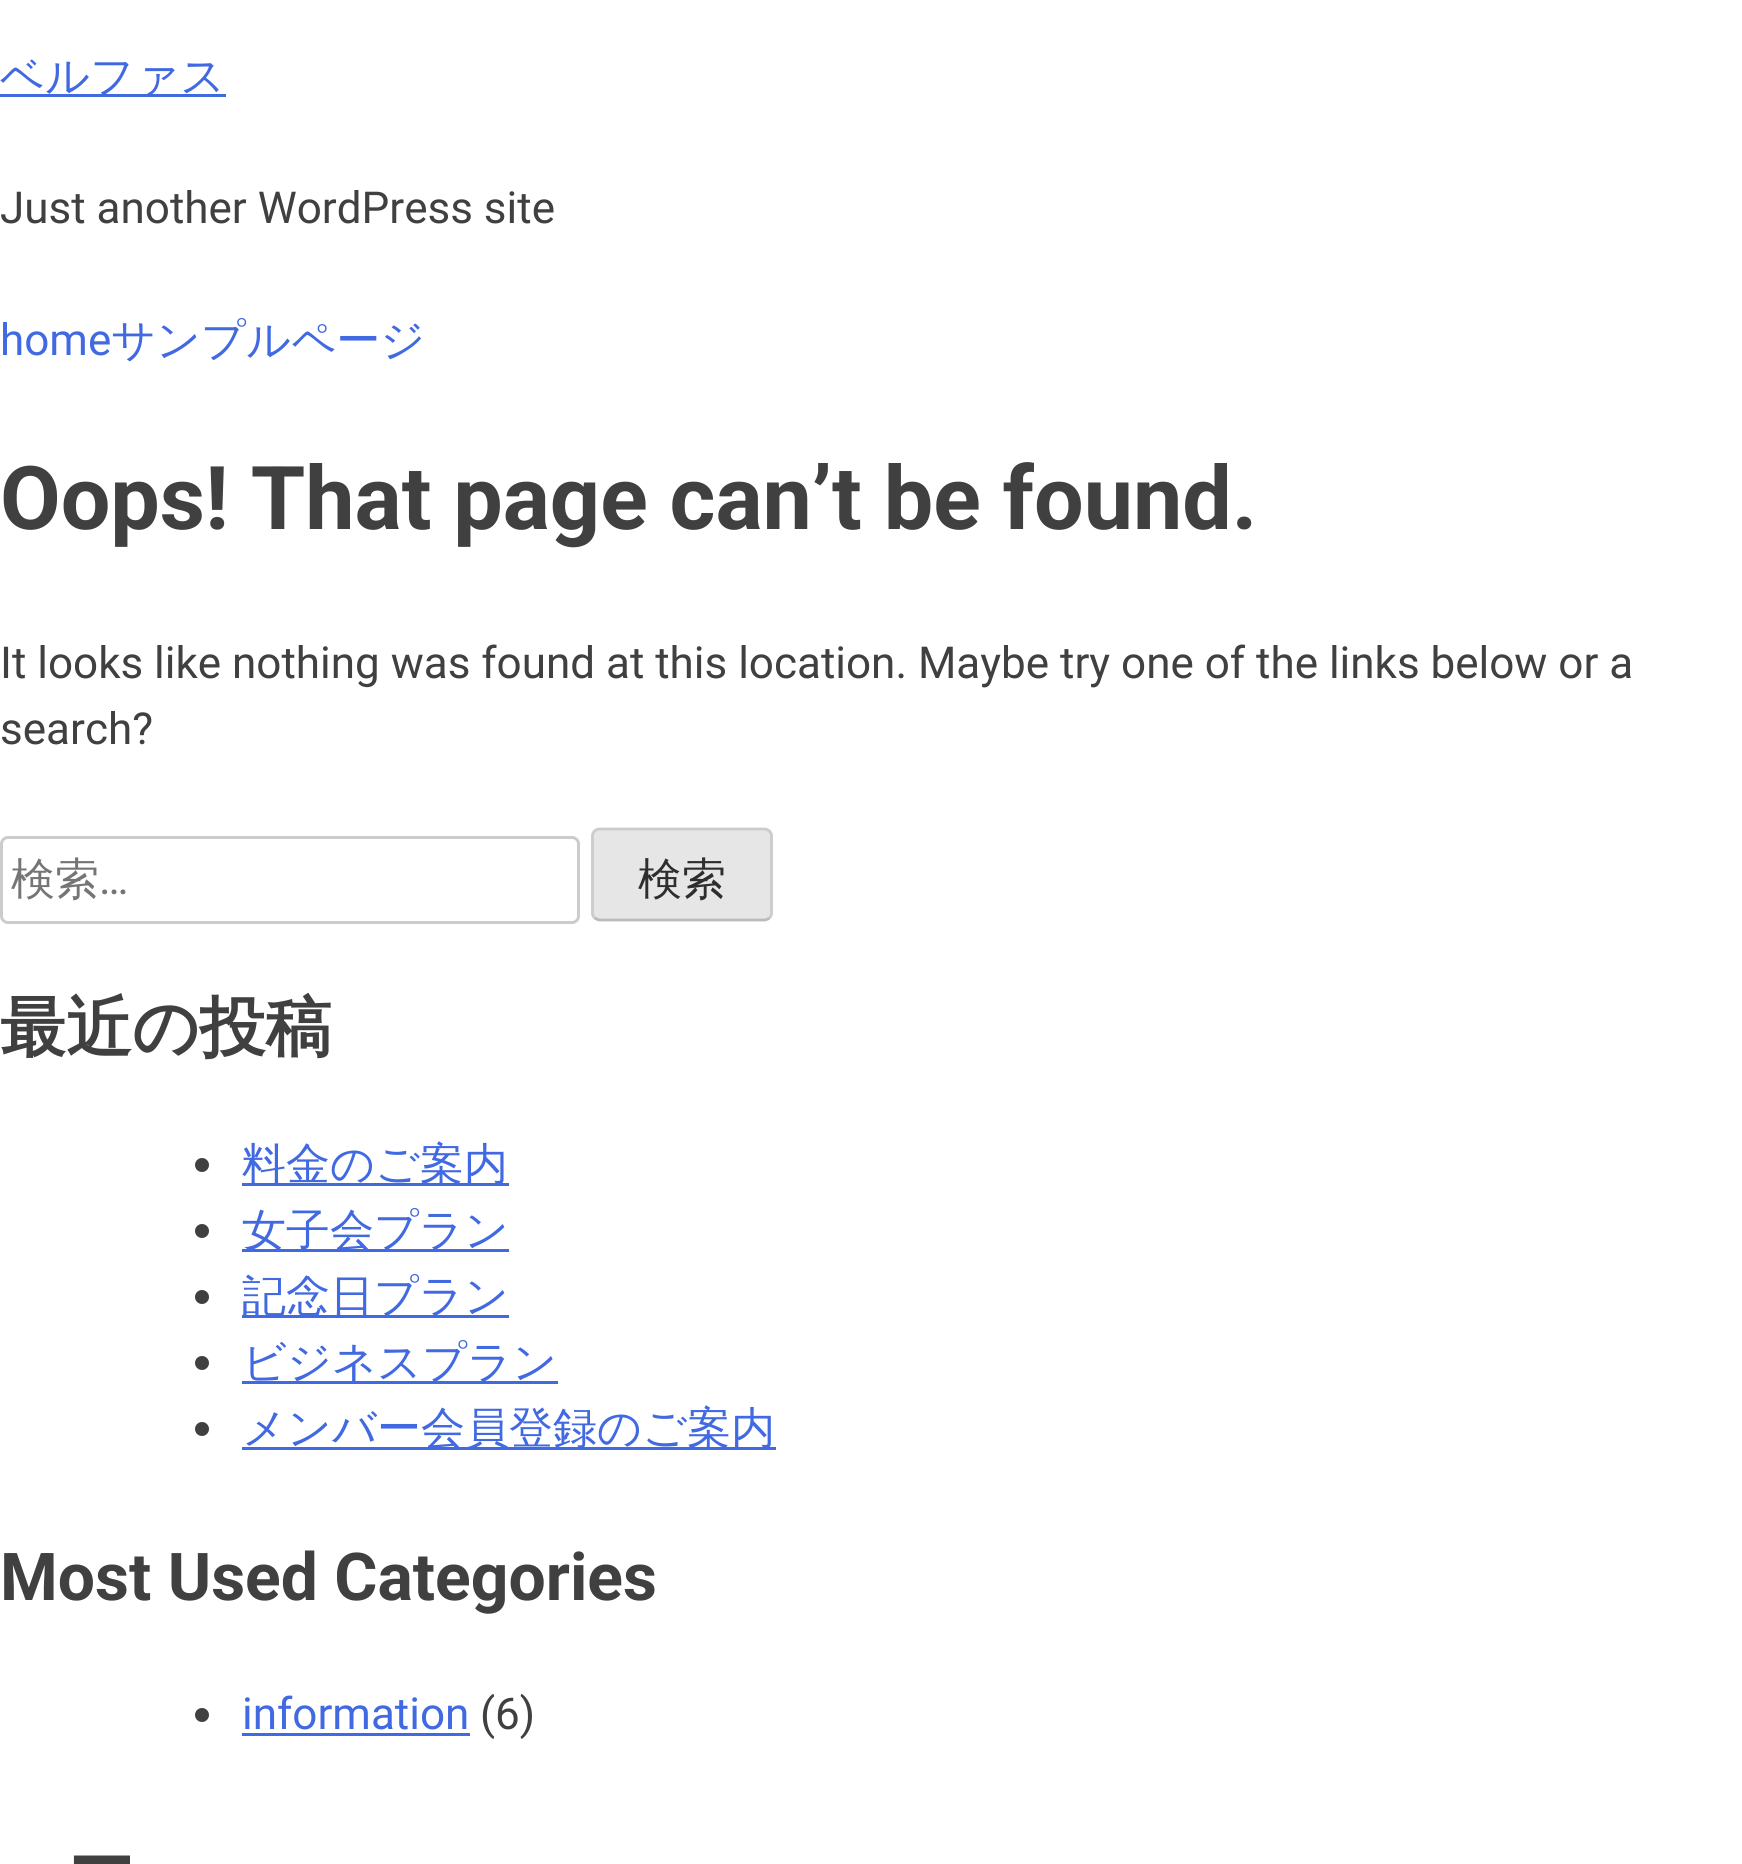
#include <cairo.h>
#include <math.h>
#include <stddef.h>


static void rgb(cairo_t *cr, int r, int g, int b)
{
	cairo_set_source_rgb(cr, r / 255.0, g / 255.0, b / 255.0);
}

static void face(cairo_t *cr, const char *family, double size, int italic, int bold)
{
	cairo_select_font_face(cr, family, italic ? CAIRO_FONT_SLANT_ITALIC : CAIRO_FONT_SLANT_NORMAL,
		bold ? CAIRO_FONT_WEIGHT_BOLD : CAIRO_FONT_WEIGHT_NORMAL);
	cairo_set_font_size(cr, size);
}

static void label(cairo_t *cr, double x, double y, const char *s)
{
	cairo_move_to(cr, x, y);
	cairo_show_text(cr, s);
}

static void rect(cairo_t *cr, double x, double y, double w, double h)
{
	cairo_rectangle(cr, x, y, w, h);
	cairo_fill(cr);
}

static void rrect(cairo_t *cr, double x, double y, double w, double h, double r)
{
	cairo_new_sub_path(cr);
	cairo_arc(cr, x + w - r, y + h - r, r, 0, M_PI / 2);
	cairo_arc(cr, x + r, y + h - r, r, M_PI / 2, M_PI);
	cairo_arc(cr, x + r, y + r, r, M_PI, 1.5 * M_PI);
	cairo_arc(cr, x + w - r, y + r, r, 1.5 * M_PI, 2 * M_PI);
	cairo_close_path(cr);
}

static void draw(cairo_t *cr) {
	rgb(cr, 255, 255, 255);
	cairo_paint(cr);
	rgb(cr, 65, 105, 225);
	rect(cr, 0, 94, 226, 3);
	face(cr, "WenQuanYi Zen Hei Medium", 44, 0, 0);
	label(cr, 0, 91, "ベルファス");
	face(cr, "Roboto", 44, 0, 0);
	rgb(cr, 64, 64, 64);
	label(cr, 0, 223, "Just another WordPress site");
	rgb(cr, 65, 105, 225);
	label(cr, 0, 355, "home");
	face(cr, "WenQuanYi Zen Hei Medium", 44, 0, 0);
	label(cr, 111, 355, "サンプルページ");
	face(cr, "Roboto", 88, 0, 1);
	rgb(cr, 64, 64, 64);
	label(cr, 0, 529, "Oops! That page can’t be found.");
	face(cr, "Roboto", 44, 0, 0);
	label(cr, 0, 678, "It looks like nothing was found at this location. Maybe try one of the links below or a");
	label(cr, 0, 744, "search?");
	rrect(cr, 1.5, 837.5, 577, 85, 6.5);
	rgb(cr, 204, 204, 204);
	cairo_set_line_width(cr, 3);
	cairo_stroke(cr);
	face(cr, "WenQuanYi Zen Hei Medium", 44, 0, 0);
	rgb(cr, 117, 117, 117);
	label(cr, 11, 894, "検索");
	face(cr, "Roboto", 44, 0, 0);
	label(cr, 99, 894, "…");
	rgb(cr, 230, 230, 230);
	rrect(cr, 591, 828, 182, 93, 8);
	cairo_fill(cr);
	cairo_new_path(cr);
	cairo_move_to(cr, 769.5, 918);
	cairo_curve_to(cr, 768, 919, 767, 919.5, 765, 920);
	cairo_line_to(cr, 599, 920);
	cairo_line_to(cr, 594.5, 918);
	rgb(cr, 187, 187, 187);
	cairo_set_line_width(cr, 2.8);
	cairo_stroke(cr);
	cairo_new_path(cr);
	cairo_move_to(cr, 594.5, 918);
	cairo_curve_to(cr, 593.5, 916.5, 592.5, 915, 592.5, 913);
	cairo_line_to(cr, 592.5, 836);
	cairo_curve_to(cr, 592.5, 834, 593.5, 832.5, 594.5, 831);
	cairo_curve_to(cr, 596, 830, 597.5, 829, 599.5, 829);
	cairo_line_to(cr, 764.5, 829);
	cairo_curve_to(cr, 766.5, 829, 768, 830, 769.5, 831);
	cairo_curve_to(cr, 770.5, 832.5, 771.5, 834, 771.5, 836);
	cairo_line_to(cr, 771.5, 913);
	cairo_curve_to(cr, 771.5, 915, 770.5, 916.5, 769.5, 918);
	rgb(cr, 204, 204, 204);
	cairo_stroke(cr);
	face(cr, "WenQuanYi Zen Hei Medium", 44, 0, 0);
	rgb(cr, 46, 46, 46);
	label(cr, 638, 894, "検索");
	face(cr, "WenQuanYi Zen Hei", 66, 0, 1);
	rgb(cr, 64, 64, 64);
	label(cr, 0, 1050, "最近の投稿");
	cairo_new_path(cr);
	cairo_arc(cr, 202, 1165, 7, 0, 2 * M_PI);
	cairo_fill(cr);
	rgb(cr, 65, 105, 225);
	rect(cr, 242, 1183, 267, 3);
	face(cr, "WenQuanYi Zen Hei Medium", 44, 0, 0);
	label(cr, 242, 1179, "料金のご案内");
	rgb(cr, 64, 64, 64);
	cairo_new_path(cr);
	cairo_arc(cr, 202, 1231, 7, 0, 2 * M_PI);
	cairo_fill(cr);
	rgb(cr, 65, 105, 225);
	rect(cr, 242, 1249, 267, 3);
	label(cr, 242, 1245, "女子会プラン");
	rgb(cr, 64, 64, 64);
	cairo_new_path(cr);
	cairo_arc(cr, 202, 1297, 7, 0, 2 * M_PI);
	cairo_fill(cr);
	rgb(cr, 65, 105, 225);
	rect(cr, 242, 1315, 267, 3);
	label(cr, 242, 1311, "記念日プラン");
	rgb(cr, 64, 64, 64);
	cairo_new_path(cr);
	cairo_arc(cr, 202, 1363, 7, 0, 2 * M_PI);
	cairo_fill(cr);
	rgb(cr, 65, 105, 225);
	rect(cr, 242, 1381, 316, 3);
	label(cr, 242, 1377, "ビジネスプラン");
	rgb(cr, 64, 64, 64);
	cairo_new_path(cr);
	cairo_arc(cr, 202, 1429, 7, 0, 2 * M_PI);
	cairo_fill(cr);
	rgb(cr, 65, 105, 225);
	rect(cr, 242, 1447, 534, 3);
	label(cr, 242, 1443, "メンバー会員登録のご案内");
	face(cr, "Roboto", 66, 0, 1);
	rgb(cr, 64, 64, 64);
	label(cr, 0, 1600, "Most Used Categories");
	cairo_new_path(cr);
	cairo_arc(cr, 202, 1715, 7, 0, 2 * M_PI);
	cairo_fill(cr);
	face(cr, "Roboto", 44, 0, 0);
	rgb(cr, 65, 105, 225);
	label(cr, 242, 1729, "information");
	rect(cr, 242, 1733, 228, 3);
	rgb(cr, 64, 64, 64);
	label(cr, 480, 1729, "(6)");
	face(cr, "WenQuanYi Zen Hei", 66, 0, 1);
	label(cr, 68, 1886, "ー");
}

int main(void) {
	cairo_surface_t *surface = cairo_image_surface_create(CAIRO_FORMAT_RGB24, 1742, 1864);
	cairo_t *cr = cairo_create(surface);
	cairo_font_options_t *options = cairo_font_options_create();
	cairo_font_options_set_hint_metrics(options, CAIRO_HINT_METRICS_OFF);
	cairo_font_options_set_hint_style(options, CAIRO_HINT_STYLE_NONE);
	cairo_set_font_options(cr, options);
	cairo_set_miter_limit(cr, 4);
	draw(cr);
	cairo_surface_write_to_png(surface, "render.png");
	cairo_font_options_destroy(options);
	cairo_destroy(cr);
	cairo_surface_destroy(surface);
	return 0;
}
